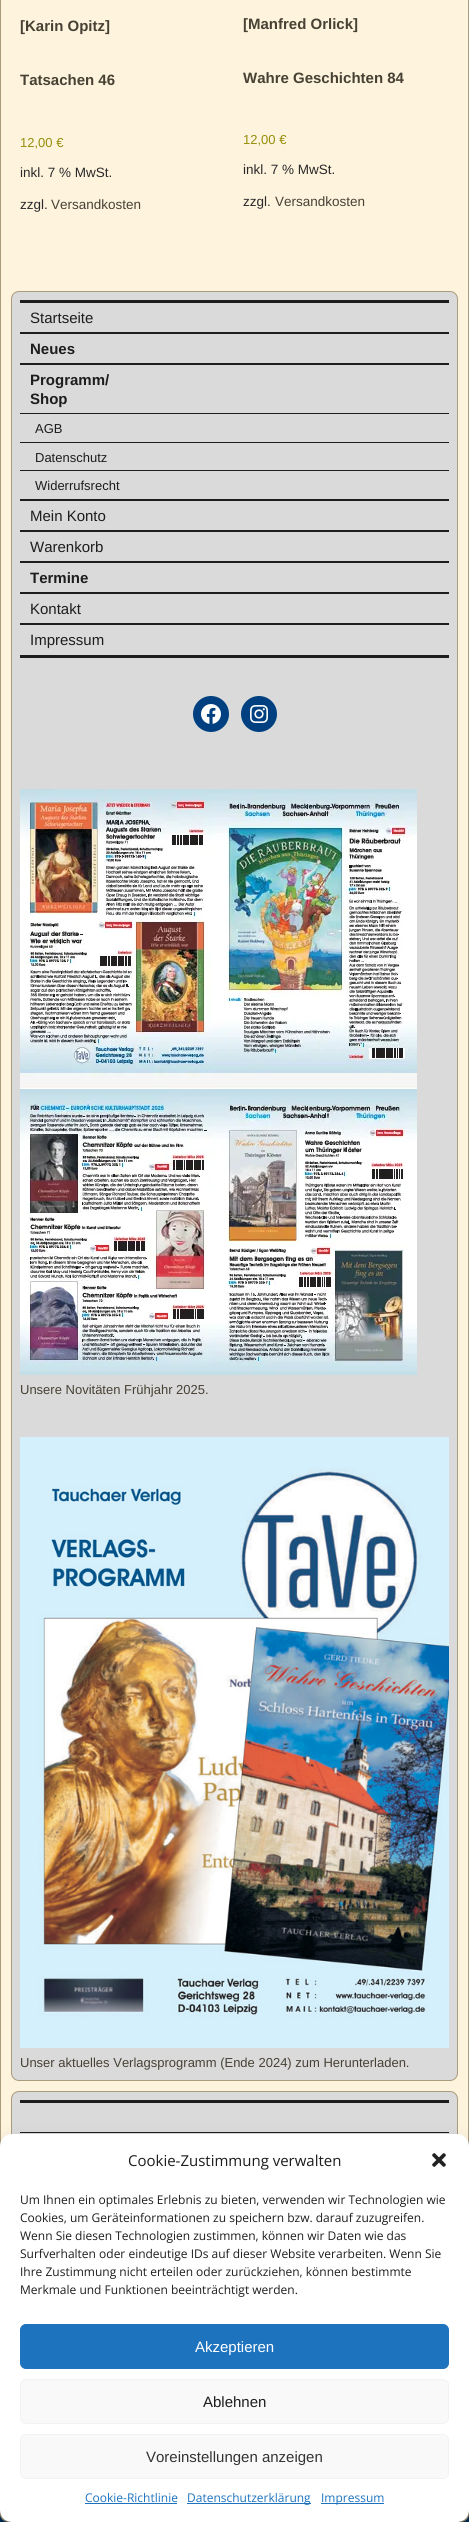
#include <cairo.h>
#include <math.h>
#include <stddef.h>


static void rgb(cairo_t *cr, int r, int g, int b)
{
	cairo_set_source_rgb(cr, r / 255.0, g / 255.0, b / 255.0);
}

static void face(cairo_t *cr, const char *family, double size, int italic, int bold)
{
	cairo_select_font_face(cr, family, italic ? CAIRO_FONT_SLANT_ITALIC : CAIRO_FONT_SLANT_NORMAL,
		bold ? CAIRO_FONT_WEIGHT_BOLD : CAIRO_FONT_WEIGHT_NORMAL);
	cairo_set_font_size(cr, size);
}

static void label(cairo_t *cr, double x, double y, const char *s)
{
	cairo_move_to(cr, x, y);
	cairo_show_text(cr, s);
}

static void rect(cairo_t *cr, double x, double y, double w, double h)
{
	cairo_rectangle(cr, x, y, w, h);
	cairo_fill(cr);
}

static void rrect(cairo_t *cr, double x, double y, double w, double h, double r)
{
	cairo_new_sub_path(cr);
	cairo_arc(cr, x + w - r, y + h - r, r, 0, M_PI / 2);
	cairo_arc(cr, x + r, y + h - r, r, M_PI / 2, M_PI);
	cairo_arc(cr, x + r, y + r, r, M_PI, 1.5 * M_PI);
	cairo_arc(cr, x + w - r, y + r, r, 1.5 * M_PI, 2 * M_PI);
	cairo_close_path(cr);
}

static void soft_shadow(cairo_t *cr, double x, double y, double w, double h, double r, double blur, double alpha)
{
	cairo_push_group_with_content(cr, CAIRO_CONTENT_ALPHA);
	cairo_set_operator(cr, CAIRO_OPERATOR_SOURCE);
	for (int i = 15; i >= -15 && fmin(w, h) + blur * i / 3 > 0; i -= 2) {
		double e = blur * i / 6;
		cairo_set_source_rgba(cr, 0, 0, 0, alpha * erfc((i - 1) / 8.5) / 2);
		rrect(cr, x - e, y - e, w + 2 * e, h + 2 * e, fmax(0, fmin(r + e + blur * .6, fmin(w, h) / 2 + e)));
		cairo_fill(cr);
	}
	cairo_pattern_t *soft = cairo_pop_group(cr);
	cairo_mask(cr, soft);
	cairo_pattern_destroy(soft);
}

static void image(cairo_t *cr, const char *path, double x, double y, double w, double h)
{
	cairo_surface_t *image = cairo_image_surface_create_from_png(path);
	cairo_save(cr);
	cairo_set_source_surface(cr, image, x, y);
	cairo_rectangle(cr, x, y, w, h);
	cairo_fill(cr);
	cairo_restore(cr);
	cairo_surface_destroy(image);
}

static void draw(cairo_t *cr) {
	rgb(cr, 0, 64, 128);
	cairo_paint(cr);
	rgb(cr, 0, 0, 0);
	soft_shadow(cr, -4, -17, 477, 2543, 12, 1.5, 0.25);
	rgb(cr, 254, 243, 221);
	rrect(cr, 0.5, -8.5, 468, 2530, 7.5);
	cairo_fill_preserve(cr);
	rgb(cr, 171, 155, 125);
	cairo_set_line_width(cr, 1);
	cairo_stroke(cr);
	face(cr, "Liberation Sans", 15, 0, 1);
	rgb(cr, 71, 65, 52);
	label(cr, 20, 31, "[Karin Opitz]");
	label(cr, 20, 85, "Tatsachen 46");
	face(cr, "Liberation Sans", 13, 0, 0);
	rgb(cr, 149, 142, 9);
	label(cr, 20, 147, "12,00 €");
	face(cr, "Liberation Sans", 13.5, 0, 0);
	rgb(cr, 41, 41, 41);
	label(cr, 20, 177, "inkl. 7 % MwSt.");
	label(cr, 20, 209, "zzgl.");
	rgb(cr, 71, 65, 52);
	label(cr, 51, 209, "Versandkosten");
	face(cr, "Liberation Sans", 15, 0, 1);
	label(cr, 243, 29, "[Manfred Orlick]");
	label(cr, 243, 83, "Wahre Geschichten 84");
	face(cr, "Liberation Sans", 13, 0, 0);
	rgb(cr, 149, 142, 9);
	label(cr, 243, 144, "12,00 €");
	face(cr, "Liberation Sans", 13.5, 0, 0);
	rgb(cr, 41, 41, 41);
	label(cr, 243, 174, "inkl. 7 % MwSt.");
	label(cr, 243, 206, "zzgl.");
	rgb(cr, 71, 65, 52);
	label(cr, 275, 206, "Versandkosten");
	rgb(cr, 218, 218, 218);
	rrect(cr, 11.5, 291.5, 446, 1789, 7.5);
	cairo_fill_preserve(cr);
	rgb(cr, 171, 155, 125);
	cairo_stroke(cr);
	rgb(cr, 29, 29, 29);
	rect(cr, 20, 300, 429, 3);
	rect(cr, 20, 655, 429, 3);
	face(cr, "Liberation Sans", 15, 0, 0);
	label(cr, 30, 323, "Startseite");
	rect(cr, 20, 332, 429, 2);
	face(cr, "Liberation Sans", 15, 0, 1);
	label(cr, 30, 354, "Neues");
	rect(cr, 20, 363, 429, 2);
	label(cr, 30, 385, "Programm/");
	label(cr, 30, 404, "Shop");
	rect(cr, 20, 413, 429, 1);
	face(cr, "Liberation Sans", 13, 0, 0);
	label(cr, 35, 433, "AGB");
	rect(cr, 20, 442, 429, 1);
	label(cr, 35, 462, "Datenschutz");
	rect(cr, 20, 470, 429, 1);
	label(cr, 35, 490, "Widerrufsrecht");
	rect(cr, 20, 499, 429, 2);
	face(cr, "Liberation Sans", 15, 0, 0);
	label(cr, 30, 521, "Mein Konto");
	rect(cr, 20, 530, 429, 2);
	label(cr, 30, 552, "Warenkorb");
	rect(cr, 20, 561, 429, 2);
	face(cr, "Liberation Sans", 15, 0, 1);
	label(cr, 30, 583, "Termine");
	rect(cr, 20, 592, 429, 2);
	face(cr, "Liberation Sans", 15, 0, 0);
	label(cr, 30, 614, "Kontakt");
	rect(cr, 20, 623, 429, 2);
	label(cr, 30, 645, "Impressum");
	rgb(cr, 0, 64, 128);
	cairo_new_path(cr);
	cairo_arc(cr, 211, 714, 18, 0, 2 * M_PI);
	cairo_fill(cr);
	image(cr, "image0.png", 201, 704, 20, 20);
	cairo_arc(cr, 259, 714, 18, 0, 2 * M_PI);
	cairo_fill(cr);
	image(cr, "image1.png", 250, 705, 18, 18);
	image(cr, "image2.png", 20, 789, 397, 586);
	face(cr, "Liberation Sans", 13, 0, 0);
	rgb(cr, 71, 65, 52);
	label(cr, 20, 1394, "Unsere Novitäten Frühjahr 2025.");
	image(cr, "image3.png", 20, 1437, 429, 611);
	label(cr, 20, 2067, "Unser aktuelles Verlagsprogramm (Ende 2024) zum Herunterladen.");
	rgb(cr, 218, 218, 218);
	rrect(cr, 11.5, 2091.5, 446, 352, 7.5);
	cairo_fill_preserve(cr);
	rgb(cr, 171, 155, 125);
	cairo_stroke(cr);
	rgb(cr, 29, 29, 29);
	rect(cr, 20, 2100, 429, 3);
	rect(cr, 20, 2132, 429, 1);
	rgb(cr, 0, 0, 0);
	soft_shadow(cr, 0, 2140, 469, 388, 12, 3, 0.23);
	soft_shadow(cr, 0, 2144, 469, 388, 12, 10, 0.19);
	rgb(cr, 255, 255, 255);
	rrect(cr, 0, 2134, 469, 388, 12);
	cairo_fill(cr);
	face(cr, "Open Sans", 15, 0, 0);
	rgb(cr, 29, 29, 29);
	label(cr, 128, 2166, "Cookie-Zustimmung verwalten");
	image(cr, "image4.png", 432, 2153, 14, 14);
	face(cr, "Open Sans", 12, 0, 0);
	label(cr, 20, 2204, "Um Ihnen ein optimales Erlebnis zu bieten, verwenden wir Technologien wie");
	label(cr, 20, 2222, "Cookies, um Geräteinformationen zu speichern bzw. darauf zuzugreifen.");
	label(cr, 20, 2240, "Wenn Sie diesen Technologien zustimmen, können wir Daten wie das");
	label(cr, 20, 2258, "Surfverhalten oder eindeutige IDs auf dieser Website verarbeiten. Wenn Sie");
	label(cr, 20, 2276, "Ihre Zustimmung nicht erteilen oder zurückziehen, können bestimmte");
	label(cr, 20, 2294, "Merkmale und Funktionen beeinträchtigt werden.");
	rgb(cr, 30, 115, 190);
	rrect(cr, 20.5, 2324.5, 428, 44, 5.5);
	cairo_fill_preserve(cr);
	cairo_stroke(cr);
	face(cr, "Liberation Sans", 15, 0, 0);
	rgb(cr, 255, 255, 255);
	label(cr, 195, 2352, "Akzeptieren");
	rgb(cr, 249, 249, 249);
	rrect(cr, 20.5, 2379.5, 428, 44, 5.5);
	cairo_fill_preserve(cr);
	rgb(cr, 242, 242, 242);
	cairo_stroke(cr);
	rgb(cr, 29, 29, 29);
	label(cr, 203, 2407, "Ablehnen");
	rgb(cr, 249, 249, 249);
	rrect(cr, 20.5, 2434.5, 428, 44, 5.5);
	cairo_fill_preserve(cr);
	rgb(cr, 242, 242, 242);
	cairo_stroke(cr);
	rgb(cr, 51, 51, 51);
	label(cr, 146, 2462, "Voreinstellungen anzeigen");
	face(cr, "Open Sans", 12, 0, 0);
	rgb(cr, 30, 115, 190);
	label(cr, 85, 2502, "Cookie-Richtlinie");
	rect(cr, 85, 2503, 92, 1);
	rect(cr, 187, 2503, 124, 1);
	label(cr, 187, 2502, "Datenschutzerklärung");
	rect(cr, 321, 2503, 63, 1);
	label(cr, 321, 2502, "Impressum");
}

int main(void) {
	cairo_surface_t *surface = cairo_image_surface_create(CAIRO_FORMAT_RGB24, 469, 2522);
	cairo_t *cr = cairo_create(surface);
	cairo_font_options_t *options = cairo_font_options_create();
	cairo_font_options_set_hint_metrics(options, CAIRO_HINT_METRICS_OFF);
	cairo_font_options_set_hint_style(options, CAIRO_HINT_STYLE_NONE);
	cairo_set_font_options(cr, options);
	cairo_set_miter_limit(cr, 4);
	draw(cr);
	cairo_surface_write_to_png(surface, "render.png");
	cairo_font_options_destroy(options);
	cairo_destroy(cr);
	cairo_surface_destroy(surface);
	return 0;
}
